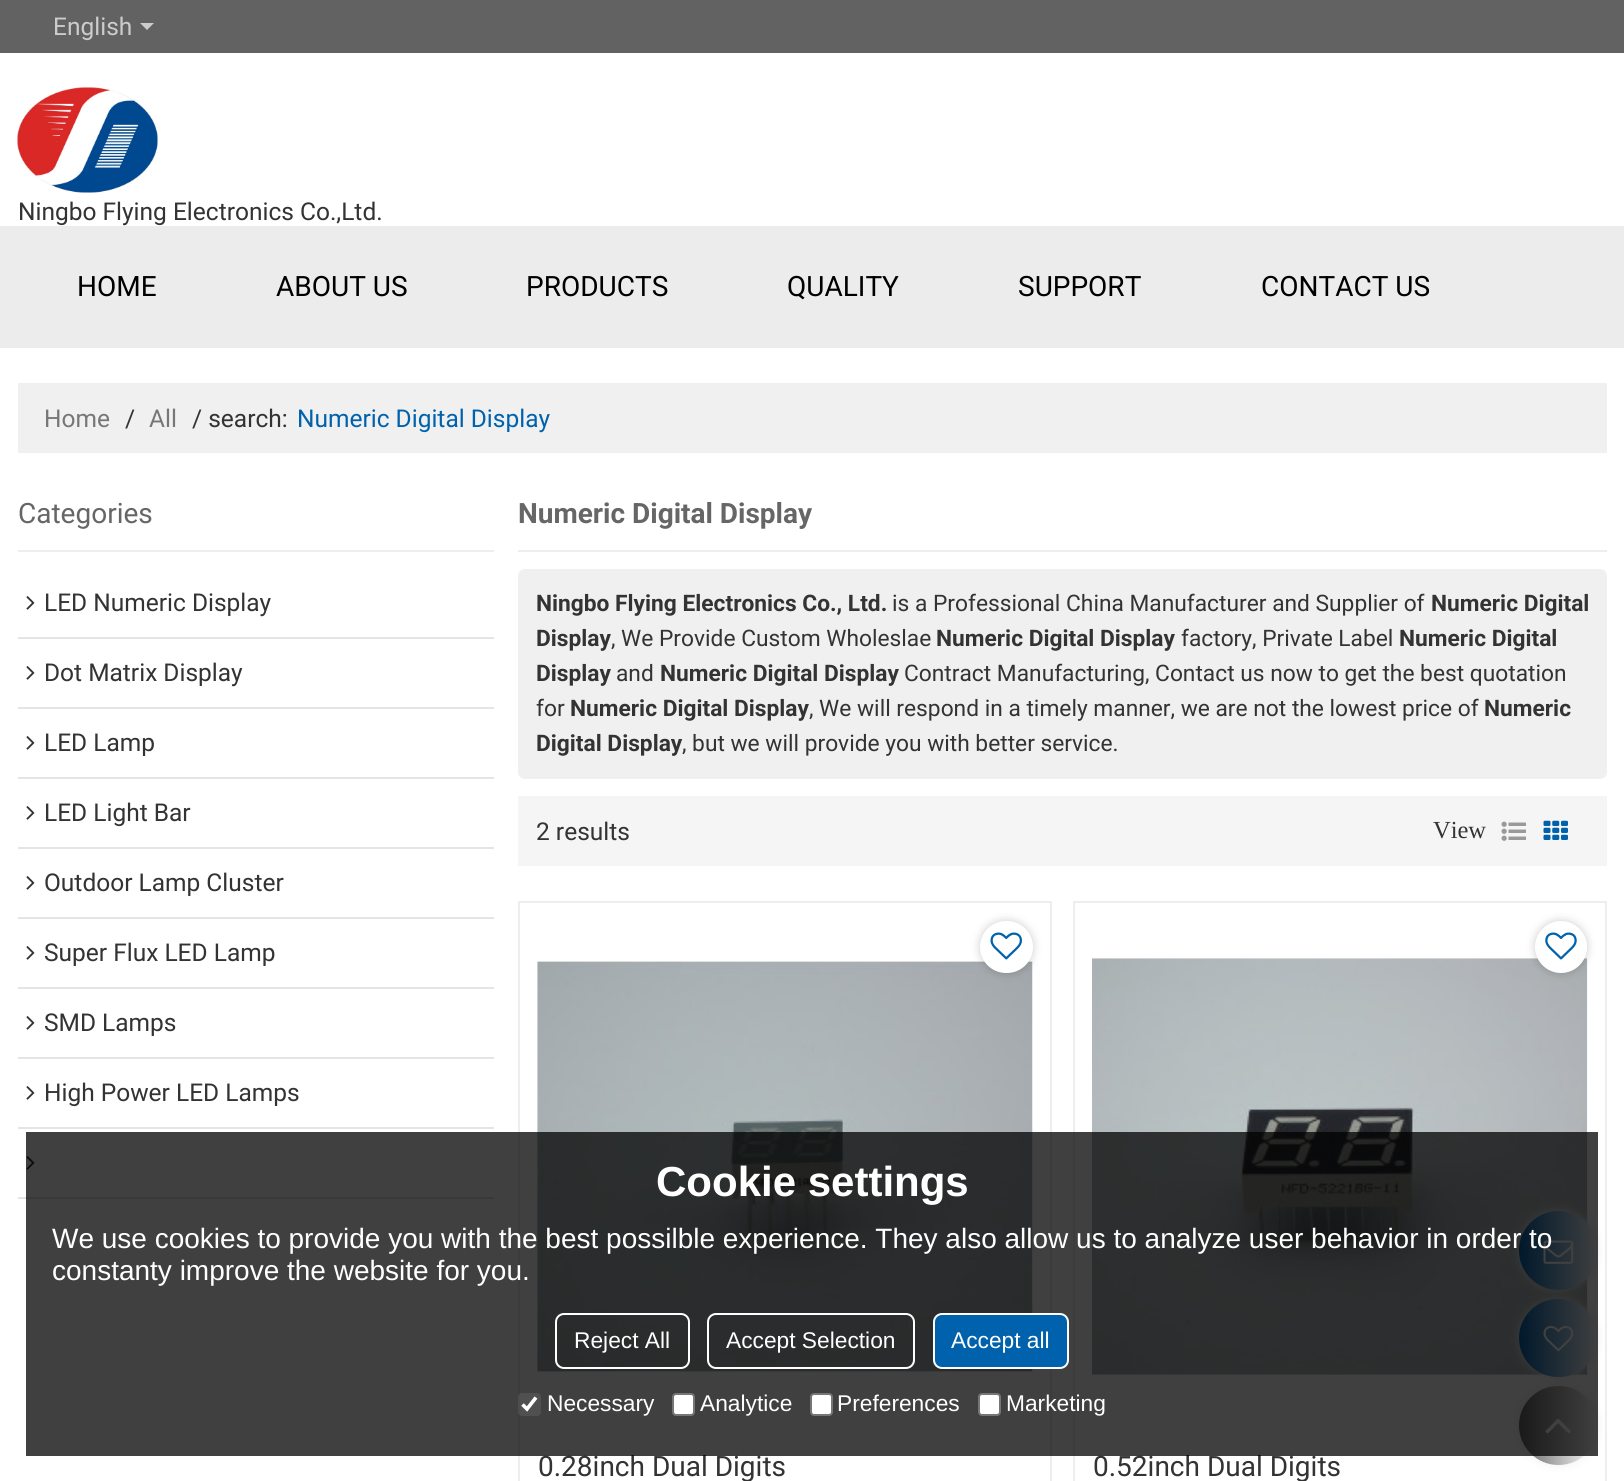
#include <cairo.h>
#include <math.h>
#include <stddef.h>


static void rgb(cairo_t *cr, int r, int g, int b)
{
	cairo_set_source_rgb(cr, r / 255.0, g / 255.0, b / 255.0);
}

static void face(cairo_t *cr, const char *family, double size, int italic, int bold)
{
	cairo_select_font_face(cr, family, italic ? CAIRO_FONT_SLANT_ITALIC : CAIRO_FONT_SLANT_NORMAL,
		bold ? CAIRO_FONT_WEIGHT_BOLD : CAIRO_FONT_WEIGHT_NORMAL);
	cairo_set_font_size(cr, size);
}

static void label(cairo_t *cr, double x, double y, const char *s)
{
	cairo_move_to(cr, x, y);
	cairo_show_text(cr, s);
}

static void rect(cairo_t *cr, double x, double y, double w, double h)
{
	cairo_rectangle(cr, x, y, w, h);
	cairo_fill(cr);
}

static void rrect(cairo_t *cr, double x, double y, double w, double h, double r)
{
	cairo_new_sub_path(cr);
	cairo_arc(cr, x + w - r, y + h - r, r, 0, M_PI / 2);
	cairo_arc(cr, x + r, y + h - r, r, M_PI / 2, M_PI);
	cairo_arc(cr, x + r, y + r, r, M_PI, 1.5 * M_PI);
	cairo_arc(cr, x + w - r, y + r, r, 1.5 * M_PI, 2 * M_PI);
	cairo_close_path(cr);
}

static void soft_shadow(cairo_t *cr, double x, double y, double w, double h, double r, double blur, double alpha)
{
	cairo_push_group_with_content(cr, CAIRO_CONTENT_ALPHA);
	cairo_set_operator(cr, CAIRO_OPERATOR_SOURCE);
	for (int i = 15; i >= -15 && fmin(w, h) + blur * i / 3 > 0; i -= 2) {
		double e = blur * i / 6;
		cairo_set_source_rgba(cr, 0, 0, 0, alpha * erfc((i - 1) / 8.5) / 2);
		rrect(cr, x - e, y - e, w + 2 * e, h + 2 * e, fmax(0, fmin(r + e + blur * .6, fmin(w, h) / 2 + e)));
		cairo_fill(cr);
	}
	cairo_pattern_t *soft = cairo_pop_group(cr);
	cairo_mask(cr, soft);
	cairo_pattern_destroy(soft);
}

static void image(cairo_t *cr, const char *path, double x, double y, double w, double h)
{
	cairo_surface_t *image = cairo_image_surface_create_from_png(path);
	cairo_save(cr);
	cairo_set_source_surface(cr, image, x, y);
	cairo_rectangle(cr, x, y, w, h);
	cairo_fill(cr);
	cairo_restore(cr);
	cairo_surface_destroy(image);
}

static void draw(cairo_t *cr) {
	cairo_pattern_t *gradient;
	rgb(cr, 255, 255, 255);
	cairo_paint(cr);
	rgb(cr, 98, 98, 98);
	rect(cr, 0, 0, 1624, 53);
	face(cr, "Roboto", 24.5, 0, 0);
	rgb(cr, 204, 204, 204);
	label(cr, 53, 35, "English");
	cairo_new_path(cr);
	cairo_move_to(cr, 140, 23);
	cairo_line_to(cr, 154, 23);
	cairo_line_to(cr, 147, 30);
	cairo_close_path(cr);
	cairo_fill(cr);
	image(cr, "image0.png", 17, 87, 141, 106);
	rgb(cr, 51, 51, 51);
	label(cr, 18, 220, "Ningbo Flying Electronics Co.,Ltd.");
	rgb(cr, 236, 236, 236);
	rect(cr, 0, 226, 1624, 122);
	face(cr, "Roboto", 28, 0, 0);
	rgb(cr, 0, 0, 0);
	label(cr, 77, 296, "HOME");
	label(cr, 276, 296, "ABOUT US");
	label(cr, 526, 296, "PRODUCTS");
	label(cr, 787, 296, "QUALITY");
	label(cr, 1018, 296, "SUPPORT");
	label(cr, 1261, 296, "CONTACT US");
	rgb(cr, 240, 240, 240);
	rect(cr, 18, 383, 1589, 70);
	face(cr, "Roboto", 24.5, 0, 0);
	rgb(cr, 119, 119, 119);
	label(cr, 44, 427, "Home");
	rgb(cr, 51, 51, 51);
	label(cr, 125, 427, "/");
	rgb(cr, 119, 119, 119);
	label(cr, 149, 427, "All");
	rgb(cr, 51, 51, 51);
	label(cr, 192, 427, "/ search:");
	rgb(cr, 0, 98, 173);
	label(cr, 297, 427, "Numeric Digital Display");
	rgb(cr, 238, 238, 238);
	rect(cr, 18, 550, 476, 2);
	face(cr, "Roboto", 28, 0, 0);
	rgb(cr, 102, 102, 102);
	label(cr, 18, 523, "Categories");
	rgb(cr, 229, 229, 229);
	rect(cr, 18, 637, 476, 2);
	image(cr, "image1.png", 26, 596, 9, 14);
	face(cr, "Roboto", 24.5, 0, 0);
	rgb(cr, 51, 51, 51);
	label(cr, 44, 611, "LED Numeric Display");
	rgb(cr, 229, 229, 229);
	rect(cr, 18, 707, 476, 2);
	image(cr, "image1.png", 26, 666, 9, 14);
	rgb(cr, 51, 51, 51);
	label(cr, 44, 681, "Dot Matrix Display");
	rgb(cr, 229, 229, 229);
	rect(cr, 18, 777, 476, 2);
	image(cr, "image1.png", 26, 736, 9, 14);
	rgb(cr, 51, 51, 51);
	label(cr, 44, 751, "LED Lamp");
	rgb(cr, 229, 229, 229);
	rect(cr, 18, 847, 476, 2);
	image(cr, "image1.png", 26, 806, 9, 14);
	rgb(cr, 51, 51, 51);
	label(cr, 44, 821, "LED Light Bar");
	rgb(cr, 229, 229, 229);
	rect(cr, 18, 917, 476, 2);
	image(cr, "image1.png", 26, 876, 9, 14);
	rgb(cr, 51, 51, 51);
	label(cr, 44, 891, "Outdoor Lamp Cluster");
	rgb(cr, 229, 229, 229);
	rect(cr, 18, 987, 476, 2);
	image(cr, "image1.png", 26, 946, 9, 14);
	rgb(cr, 51, 51, 51);
	label(cr, 44, 961, "Super Flux LED Lamp");
	rgb(cr, 229, 229, 229);
	rect(cr, 18, 1057, 476, 2);
	image(cr, "image1.png", 26, 1016, 9, 14);
	rgb(cr, 51, 51, 51);
	label(cr, 44, 1031, "SMD Lamps");
	rgb(cr, 229, 229, 229);
	rect(cr, 18, 1127, 476, 2);
	image(cr, "image1.png", 26, 1086, 9, 14);
	rgb(cr, 51, 51, 51);
	label(cr, 44, 1101, "High Power LED Lamps");
	rgb(cr, 229, 229, 229);
	rect(cr, 18, 1197, 476, 2);
	image(cr, "image1.png", 26, 1156, 9, 14);
	rgb(cr, 238, 238, 238);
	rect(cr, 518, 550, 1089, 2);
	face(cr, "Roboto", 28, 0, 1);
	rgb(cr, 102, 102, 102);
	label(cr, 518, 523, "Numeric Digital Display");
	rgb(cr, 240, 240, 240);
	rrect(cr, 518, 569, 1089, 210, 7);
	cairo_fill(cr);
	face(cr, "Roboto", 22.75, 0, 1);
	rgb(cr, 51, 51, 51);
	label(cr, 536, 611, "Ningbo Flying Electronics Co., Ltd.");
	face(cr, "Roboto", 22.75, 0, 0);
	label(cr, 892, 611, "is a Professional China Manufacturer and Supplier of");
	face(cr, "Roboto", 22.75, 0, 1);
	label(cr, 1431, 611, "Numeric Digital");
	label(cr, 536, 646, "Display");
	face(cr, "Roboto", 22.75, 0, 0);
	label(cr, 611, 646, ", We Provide Custom Wholeslae");
	face(cr, "Roboto", 22.75, 0, 1);
	label(cr, 936, 646, "Numeric Digital Display");
	face(cr, "Roboto", 22.75, 0, 0);
	label(cr, 1181, 646, "factory, Private Label");
	face(cr, "Roboto", 22.75, 0, 1);
	label(cr, 1399, 646, "Numeric Digital");
	label(cr, 536, 681, "Display");
	face(cr, "Roboto", 22.75, 0, 0);
	label(cr, 616, 681, "and");
	face(cr, "Roboto", 22.75, 0, 1);
	label(cr, 660, 681, "Numeric Digital Display");
	face(cr, "Roboto", 22.75, 0, 0);
	label(cr, 904, 681, "Contract Manufacturing, Contact us now to get the best quotation");
	label(cr, 536, 716, "for");
	face(cr, "Roboto", 22.75, 0, 1);
	label(cr, 570, 716, "Numeric Digital Display");
	face(cr, "Roboto", 22.75, 0, 0);
	label(cr, 809, 716, ", We will respond in a timely manner, we are not the lowest price of");
	face(cr, "Roboto", 22.75, 0, 1);
	label(cr, 1484, 716, "Numeric");
	label(cr, 536, 751, "Digital Display");
	face(cr, "Roboto", 22.75, 0, 0);
	label(cr, 682, 751, ", but we will provide you with better service.");
	rgb(cr, 245, 245, 245);
	rect(cr, 518, 796, 1089, 70);
	face(cr, "Roboto", 24.5, 0, 0);
	rgb(cr, 51, 51, 51);
	label(cr, 536, 840, "2 results");
	face(cr, "Liberation Serif", 24.5, 0, 0);
	label(cr, 1433, 838, "View");
	image(cr, "image2.png", 1501, 821, 25, 20);
	image(cr, "image3.png", 1543, 820, 25, 20);
	cairo_rectangle(cr, 519, 902, 532, 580);
	rgb(cr, 238, 238, 238);
	cairo_stroke(cr);
	image(cr, "image5.png", 537, 961, 496, 411);
	rgb(cr, 0, 0, 0);
	soft_shadow(cr, 980, 921, 53, 52, 26, 4.5, 0.2);
	rgb(cr, 255, 255, 255);
	rrect(cr, 980, 921, 53, 52, 26);
	cairo_fill(cr);
	image(cr, "image4.png", 990, 932, 32, 28);
	face(cr, "Roboto", 28, 0, 0);
	rgb(cr, 51, 51, 51);
	label(cr, 538, 1476, "0.28inch Dual Digits");
	cairo_rectangle(cr, 1074, 902, 532, 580);
	rgb(cr, 238, 238, 238);
	cairo_stroke(cr);
	image(cr, "image7.png", 1092, 958, 496, 417);
	rgb(cr, 0, 0, 0);
	soft_shadow(cr, 1535, 921, 52, 52, 26, 4.5, 0.2);
	rgb(cr, 255, 255, 255);
	cairo_arc(cr, 1561, 947, 26, 0, 2 * M_PI);
	cairo_fill(cr);
	image(cr, "image6.png", 1545, 932, 32, 28);
	rgb(cr, 51, 51, 51);
	label(cr, 1093, 1476, "0.52inch Dual Digits");
	rgb(cr, 238, 238, 238);
	soft_shadow(cr, 1519, 1211, 79, 79, 39.5, 4.5, 1);
	gradient = cairo_pattern_create_linear(1519, 1250, 1598, 1250);
	cairo_pattern_add_color_stop_rgba(gradient, 0, 0, 0.384, 0.678, 1);
	cairo_pattern_add_color_stop_rgba(gradient, 1, 1, 1, 1, 1);
	cairo_set_source(cr, gradient);
	cairo_pattern_destroy(gradient);
	cairo_arc(cr, 1558.5, 1250.5, 39.5, 0, 2 * M_PI);
	cairo_fill(cr);
	image(cr, "image8.png", 1543, 1240, 31, 24);
	rgb(cr, 238, 238, 238);
	soft_shadow(cr, 1519, 1299, 79, 78, 39, 4.5, 1);
	gradient = cairo_pattern_create_linear(1519, 1338, 1598, 1338);
	cairo_pattern_add_color_stop_rgba(gradient, 0, 0, 0.384, 0.678, 1);
	cairo_pattern_add_color_stop_rgba(gradient, 1, 1, 1, 1, 1);
	cairo_set_source(cr, gradient);
	cairo_pattern_destroy(gradient);
	rrect(cr, 1519, 1299, 79, 78, 39);
	cairo_fill(cr);
	image(cr, "image9.png", 1543, 1325, 31, 27);
	rgb(cr, 238, 238, 238);
	soft_shadow(cr, 1519, 1386, 79, 79, 39.5, 4.5, 1);
	gradient = cairo_pattern_create_linear(1519, 1425, 1598, 1425);
	cairo_pattern_add_color_stop_rgba(gradient, 0, 0.4, 0.4, 0.4, 1);
	cairo_pattern_add_color_stop_rgba(gradient, 1, 1, 1, 1, 1);
	cairo_set_source(cr, gradient);
	cairo_pattern_destroy(gradient);
	cairo_arc(cr, 1558.5, 1425.5, 39.5, 0, 2 * M_PI);
	cairo_fill(cr);
	image(cr, "image10.png", 1545, 1418, 26, 16);
	cairo_set_source_rgba(cr, 0, 0, 0, 0.75);
	rect(cr, 26, 1132, 1572, 324);
	face(cr, "Liberation Sans", 42, 0, 1);
	rgb(cr, 255, 255, 255);
	label(cr, 656, 1196, "Cookie settings");
	face(cr, "Liberation Sans", 28, 0, 0);
	label(cr, 52, 1248, "We use cookies to provide you with the best possilble experience. They also allow us to analyze user behavior in order to");
	label(cr, 52, 1280, "constanty improve the website for you.");
	rrect(cr, 556, 1314, 133, 54, 8);
	cairo_stroke(cr);
	face(cr, "Liberation Sans", 22.75, 0, 0);
	label(cr, 574, 1348, "Reject All");
	rrect(cr, 708, 1314, 206, 54, 8);
	cairo_stroke(cr);
	label(cr, 726, 1348, "Accept Selection");
	rgb(cr, 0, 98, 173);
	rrect(cr, 934, 1314, 134, 54, 8);
	cairo_fill_preserve(cr);
	rgb(cr, 255, 255, 255);
	cairo_stroke(cr);
	label(cr, 951, 1348, "Accept all");
	cairo_set_source_rgba(cr, 0.463, 0.463, 0.463, 0.3);
	rrect(cr, 518, 1393, 23, 23, 4);
	cairo_fill(cr);
	cairo_new_path(cr);
	cairo_move_to(cr, 522.5, 1404.5);
	cairo_line_to(cr, 527, 1409);
	cairo_line_to(cr, 536, 1397.5);
	rgb(cr, 255, 255, 255);
	cairo_set_line_width(cr, 3.6);
	cairo_stroke(cr);
	label(cr, 547, 1411, "Necessary");
	rrect(cr, 673, 1394, 21, 21, 3);
	cairo_fill_preserve(cr);
	rgb(cr, 118, 118, 118);
	cairo_set_line_width(cr, 2);
	cairo_stroke(cr);
	rgb(cr, 255, 255, 255);
	label(cr, 700, 1411, "Analytice");
	rrect(cr, 811, 1394, 21, 21, 3);
	cairo_fill_preserve(cr);
	rgb(cr, 118, 118, 118);
	cairo_stroke(cr);
	rgb(cr, 255, 255, 255);
	label(cr, 837, 1411, "Preferences");
	rrect(cr, 979, 1394, 21, 21, 3);
	cairo_fill_preserve(cr);
	rgb(cr, 118, 118, 118);
	cairo_stroke(cr);
	rgb(cr, 255, 255, 255);
	label(cr, 1006, 1411, "Marketing");
}

int main(void) {
	cairo_surface_t *surface = cairo_image_surface_create(CAIRO_FORMAT_RGB24, 1624, 1481);
	cairo_t *cr = cairo_create(surface);
	cairo_font_options_t *options = cairo_font_options_create();
	cairo_font_options_set_hint_metrics(options, CAIRO_HINT_METRICS_OFF);
	cairo_font_options_set_hint_style(options, CAIRO_HINT_STYLE_NONE);
	cairo_set_font_options(cr, options);
	cairo_set_miter_limit(cr, 4);
	draw(cr);
	cairo_surface_write_to_png(surface, "render.png");
	cairo_font_options_destroy(options);
	cairo_destroy(cr);
	cairo_surface_destroy(surface);
	return 0;
}
